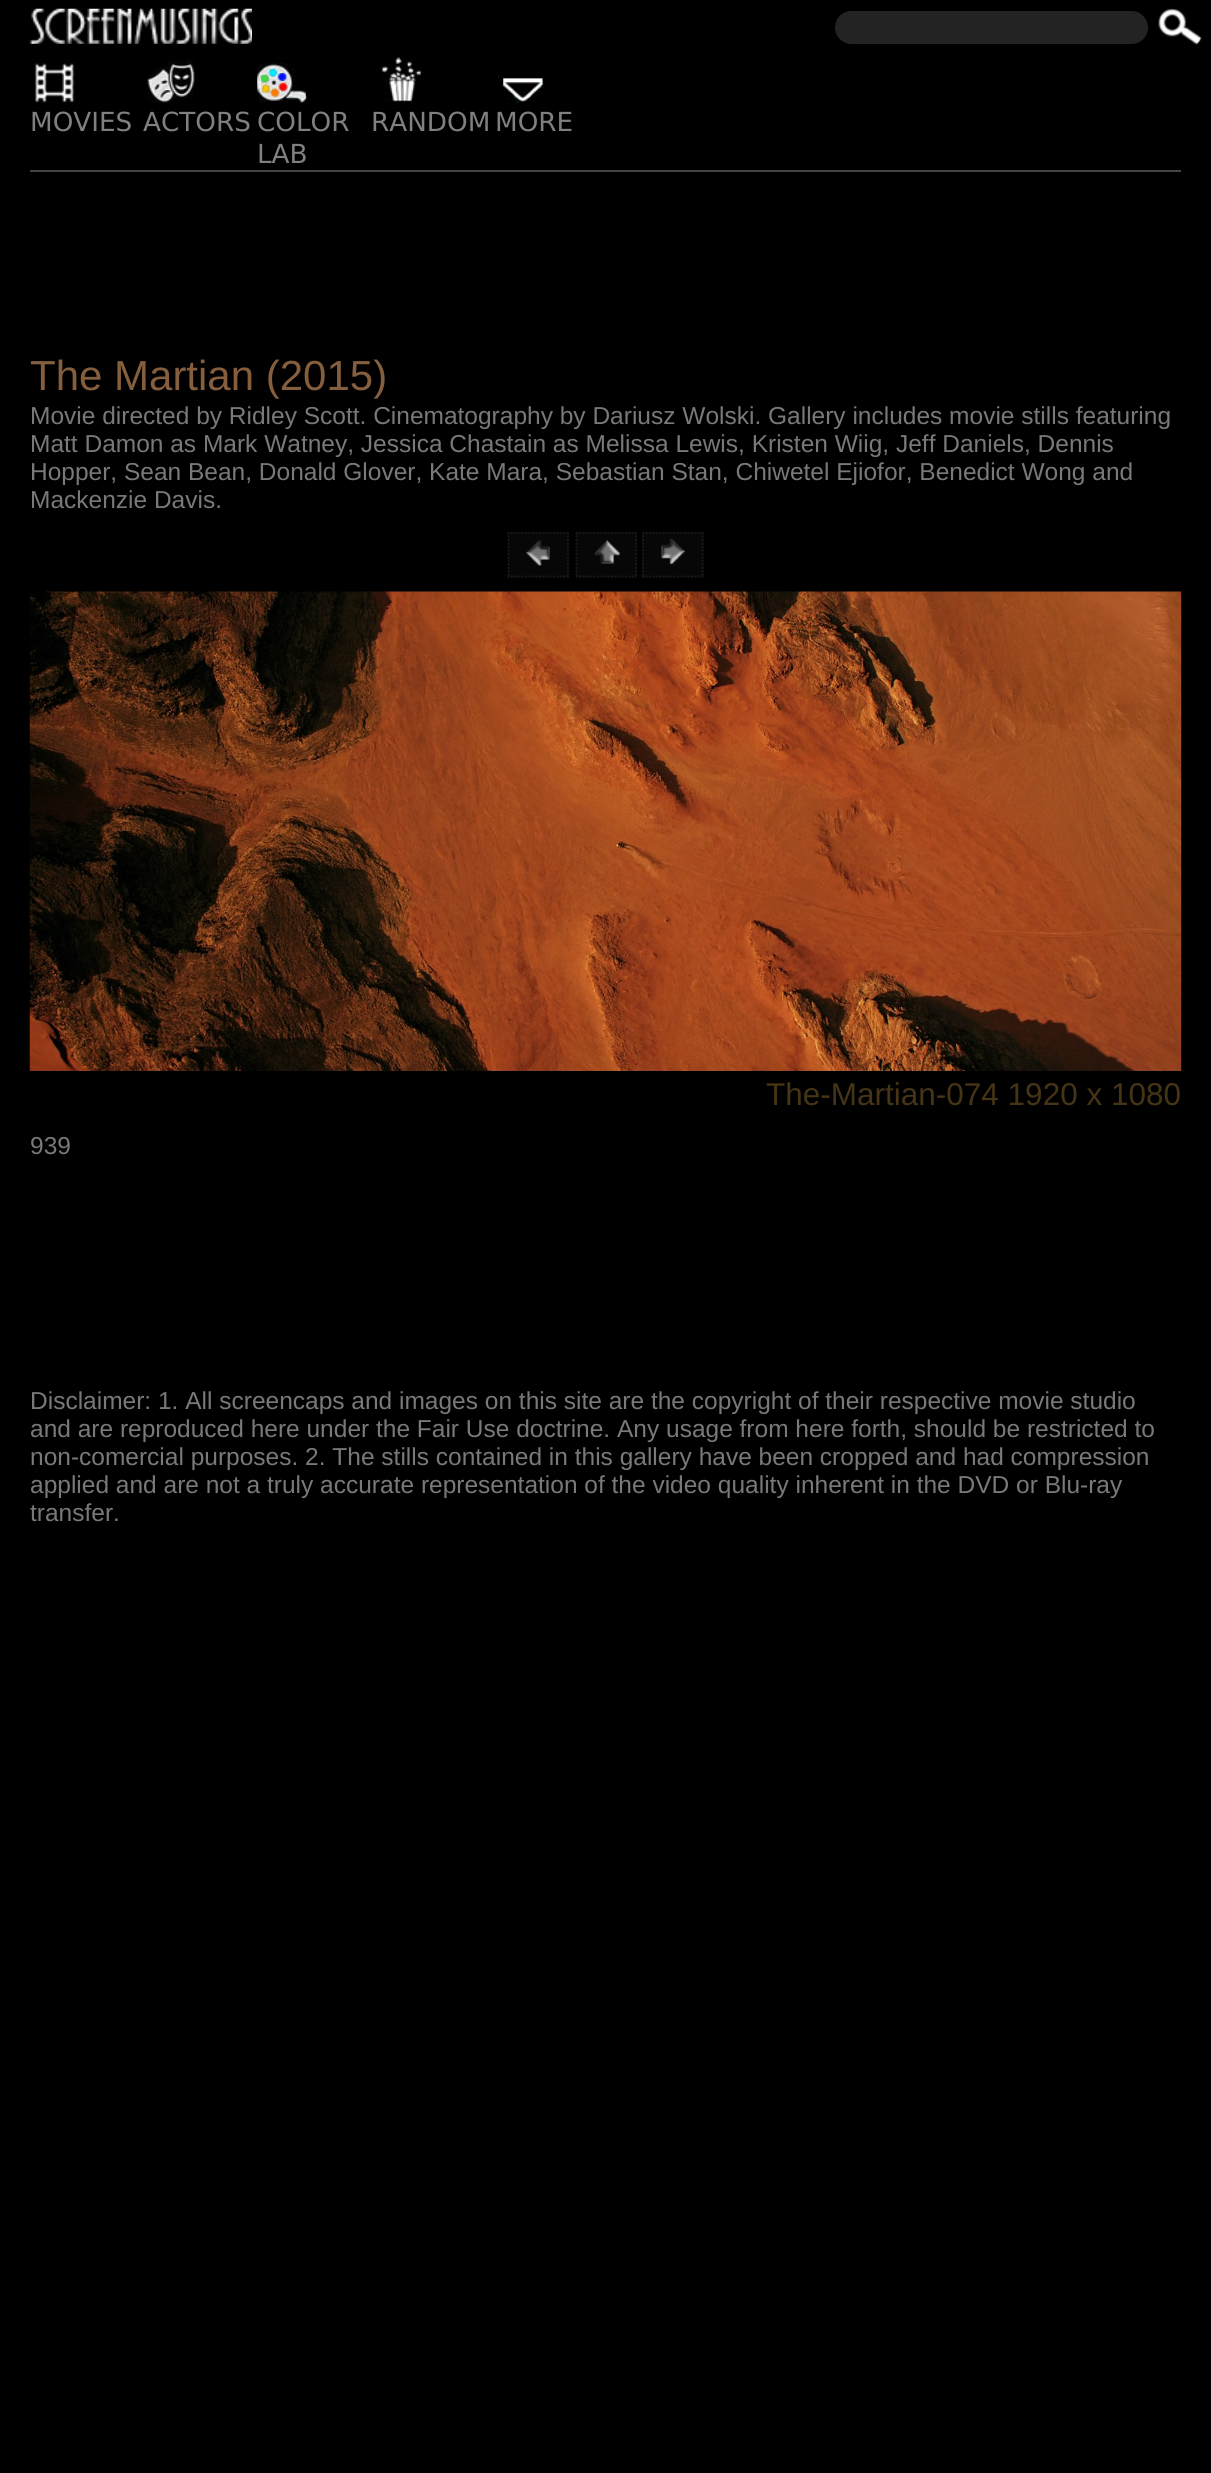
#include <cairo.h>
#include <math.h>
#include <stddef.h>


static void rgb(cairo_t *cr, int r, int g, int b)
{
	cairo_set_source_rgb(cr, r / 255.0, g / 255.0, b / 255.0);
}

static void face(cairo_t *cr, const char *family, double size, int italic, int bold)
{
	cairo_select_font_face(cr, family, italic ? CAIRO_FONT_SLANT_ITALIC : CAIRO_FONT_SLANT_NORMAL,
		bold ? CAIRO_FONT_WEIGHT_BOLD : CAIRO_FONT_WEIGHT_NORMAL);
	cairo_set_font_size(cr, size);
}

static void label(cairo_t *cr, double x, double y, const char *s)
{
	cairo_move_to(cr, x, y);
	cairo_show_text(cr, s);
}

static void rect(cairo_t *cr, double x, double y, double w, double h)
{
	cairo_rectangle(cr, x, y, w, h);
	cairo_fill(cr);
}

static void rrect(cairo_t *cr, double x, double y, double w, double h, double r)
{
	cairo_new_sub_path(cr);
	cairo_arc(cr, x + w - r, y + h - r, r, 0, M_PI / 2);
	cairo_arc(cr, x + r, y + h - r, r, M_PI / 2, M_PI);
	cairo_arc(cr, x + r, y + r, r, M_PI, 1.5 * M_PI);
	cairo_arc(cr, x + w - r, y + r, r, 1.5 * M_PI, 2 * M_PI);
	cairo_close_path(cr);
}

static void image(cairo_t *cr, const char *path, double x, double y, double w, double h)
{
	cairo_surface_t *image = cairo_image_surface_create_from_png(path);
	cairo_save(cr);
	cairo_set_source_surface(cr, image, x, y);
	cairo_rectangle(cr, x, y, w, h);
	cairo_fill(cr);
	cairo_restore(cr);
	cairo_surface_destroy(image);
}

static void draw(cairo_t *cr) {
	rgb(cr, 0, 0, 0);
	cairo_paint(cr);
	rgb(cr, 68, 68, 68);
	rect(cr, 30, 170, 1151, 2);
	image(cr, "image0.png", 29, 8, 223, 36);
	rgb(cr, 35, 35, 35);
	rrect(cr, 835, 11, 313, 33, 16.5);
	cairo_fill(cr);
	image(cr, "image1.png", 1158, 8, 44, 37);
	image(cr, "image2.png", 34, 63, 41, 40);
	face(cr, "DejaVu Sans", 26.25, 0, 0);
	rgb(cr, 128, 128, 128);
	label(cr, 30, 131, "MOVIES");
	image(cr, "image3.png", 147, 60, 48, 43);
	label(cr, 143, 131, "ACTORS");
	image(cr, "image4.png", 257, 62, 51, 42);
	label(cr, 257, 131, "COLOR");
	label(cr, 257, 163, "LAB");
	image(cr, "image5.png", 381, 57, 41, 45);
	label(cr, 371, 131, "RANDOM");
	image(cr, "image6.png", 497, 75, 47, 29);
	label(cr, 495, 131, "MORE");
	face(cr, "Liberation Sans", 42, 0, 0);
	rgb(cr, 132, 94, 61);
	label(cr, 30, 390, "The Martian (2015)");
	face(cr, "Liberation Sans", 24.5, 0, 0);
	rgb(cr, 121, 121, 121);
	label(cr, 30, 424, "Movie directed by Ridley Scott. Cinematography by Dariusz Wolski. Gallery includes movie stills featuring");
	label(cr, 30, 452, "Matt Damon as Mark Watney, Jessica Chastain as Melissa Lewis, Kristen Wiig, Jeff Daniels, Dennis");
	label(cr, 30, 480, "Hopper, Sean Bean, Donald Glover, Kate Mara, Sebastian Stan, Chiwetel Ejiofor, Benedict Wong and");
	label(cr, 30, 508, "Mackenzie Davis.");
	rgb(cr, 7, 7, 7);
	rect(cr, 508, 532, 61, 46);
	cairo_new_path(cr);
	cairo_move_to(cr, 507.5, 533);
	cairo_line_to(cr, 569, 533);
	cairo_move_to(cr, 568, 532);
	cairo_line_to(cr, 568, 577.5);
	cairo_move_to(cr, 507.5, 576.5);
	cairo_line_to(cr, 569, 576.5);
	cairo_move_to(cr, 508.5, 532);
	cairo_line_to(cr, 508.5, 577.5);
	rgb(cr, 28, 26, 26);
	cairo_set_line_width(cr, 1.8);
	cairo_set_dash(cr, (double[]){1.75, 1.75}, 2, 0);
	cairo_stroke(cr);
	rgb(cr, 7, 7, 7);
	rect(cr, 576, 532, 61, 46);
	cairo_new_path(cr);
	cairo_move_to(cr, 576, 533);
	cairo_line_to(cr, 637, 533);
	cairo_move_to(cr, 636, 532);
	cairo_line_to(cr, 636, 577.5);
	cairo_move_to(cr, 576, 576.5);
	cairo_line_to(cr, 637, 576.5);
	cairo_move_to(cr, 576.5, 532);
	cairo_line_to(cr, 576.5, 577.5);
	rgb(cr, 28, 26, 26);
	cairo_stroke(cr);
	rgb(cr, 7, 7, 7);
	rect(cr, 642, 532, 62, 46);
	cairo_new_path(cr);
	cairo_move_to(cr, 642, 533);
	cairo_line_to(cr, 703.5, 533);
	cairo_move_to(cr, 702.5, 532);
	cairo_line_to(cr, 702.5, 577.5);
	cairo_move_to(cr, 642, 576.5);
	cairo_line_to(cr, 703.5, 576.5);
	cairo_move_to(cr, 643, 532);
	cairo_line_to(cr, 643, 577.5);
	rgb(cr, 28, 26, 26);
	cairo_stroke(cr);
	image(cr, "image7.png", 526, 540, 24, 26);
	image(cr, "image8.png", 594, 540, 26, 24);
	image(cr, "image9.png", 661, 538, 24, 27);
	image(cr, "image10.png", 29, 591, 1153, 480);
	face(cr, "Liberation Sans", 31.5, 0, 0);
	rgb(cr, 69, 52, 21);
	label(cr, 766, 1105, "The-Martian-074 1920 x 1080");
	face(cr, "Liberation Sans", 24.5, 0, 0);
	rgb(cr, 121, 121, 121);
	label(cr, 30, 1154, "939");
	label(cr, 30, 1409, "Disclaimer: 1. All screencaps and images on this site are the copyright of their respective movie studio");
	label(cr, 30, 1437, "and are reproduced here under the Fair Use doctrine. Any usage from here forth, should be restricted to");
	label(cr, 30, 1465, "non-comercial purposes. 2. The stills contained in this gallery have been cropped and had compression");
	label(cr, 30, 1493, "applied and are not a truly accurate representation of the video quality inherent in the DVD or Blu-ray");
	label(cr, 30, 1521, "transfer.");
}

int main(void) {
	cairo_surface_t *surface = cairo_image_surface_create(CAIRO_FORMAT_RGB24, 1211, 2473);
	cairo_t *cr = cairo_create(surface);
	cairo_font_options_t *options = cairo_font_options_create();
	cairo_font_options_set_hint_metrics(options, CAIRO_HINT_METRICS_OFF);
	cairo_font_options_set_hint_style(options, CAIRO_HINT_STYLE_NONE);
	cairo_set_font_options(cr, options);
	cairo_set_miter_limit(cr, 4);
	draw(cr);
	cairo_surface_write_to_png(surface, "render.png");
	cairo_font_options_destroy(options);
	cairo_destroy(cr);
	cairo_surface_destroy(surface);
	return 0;
}
